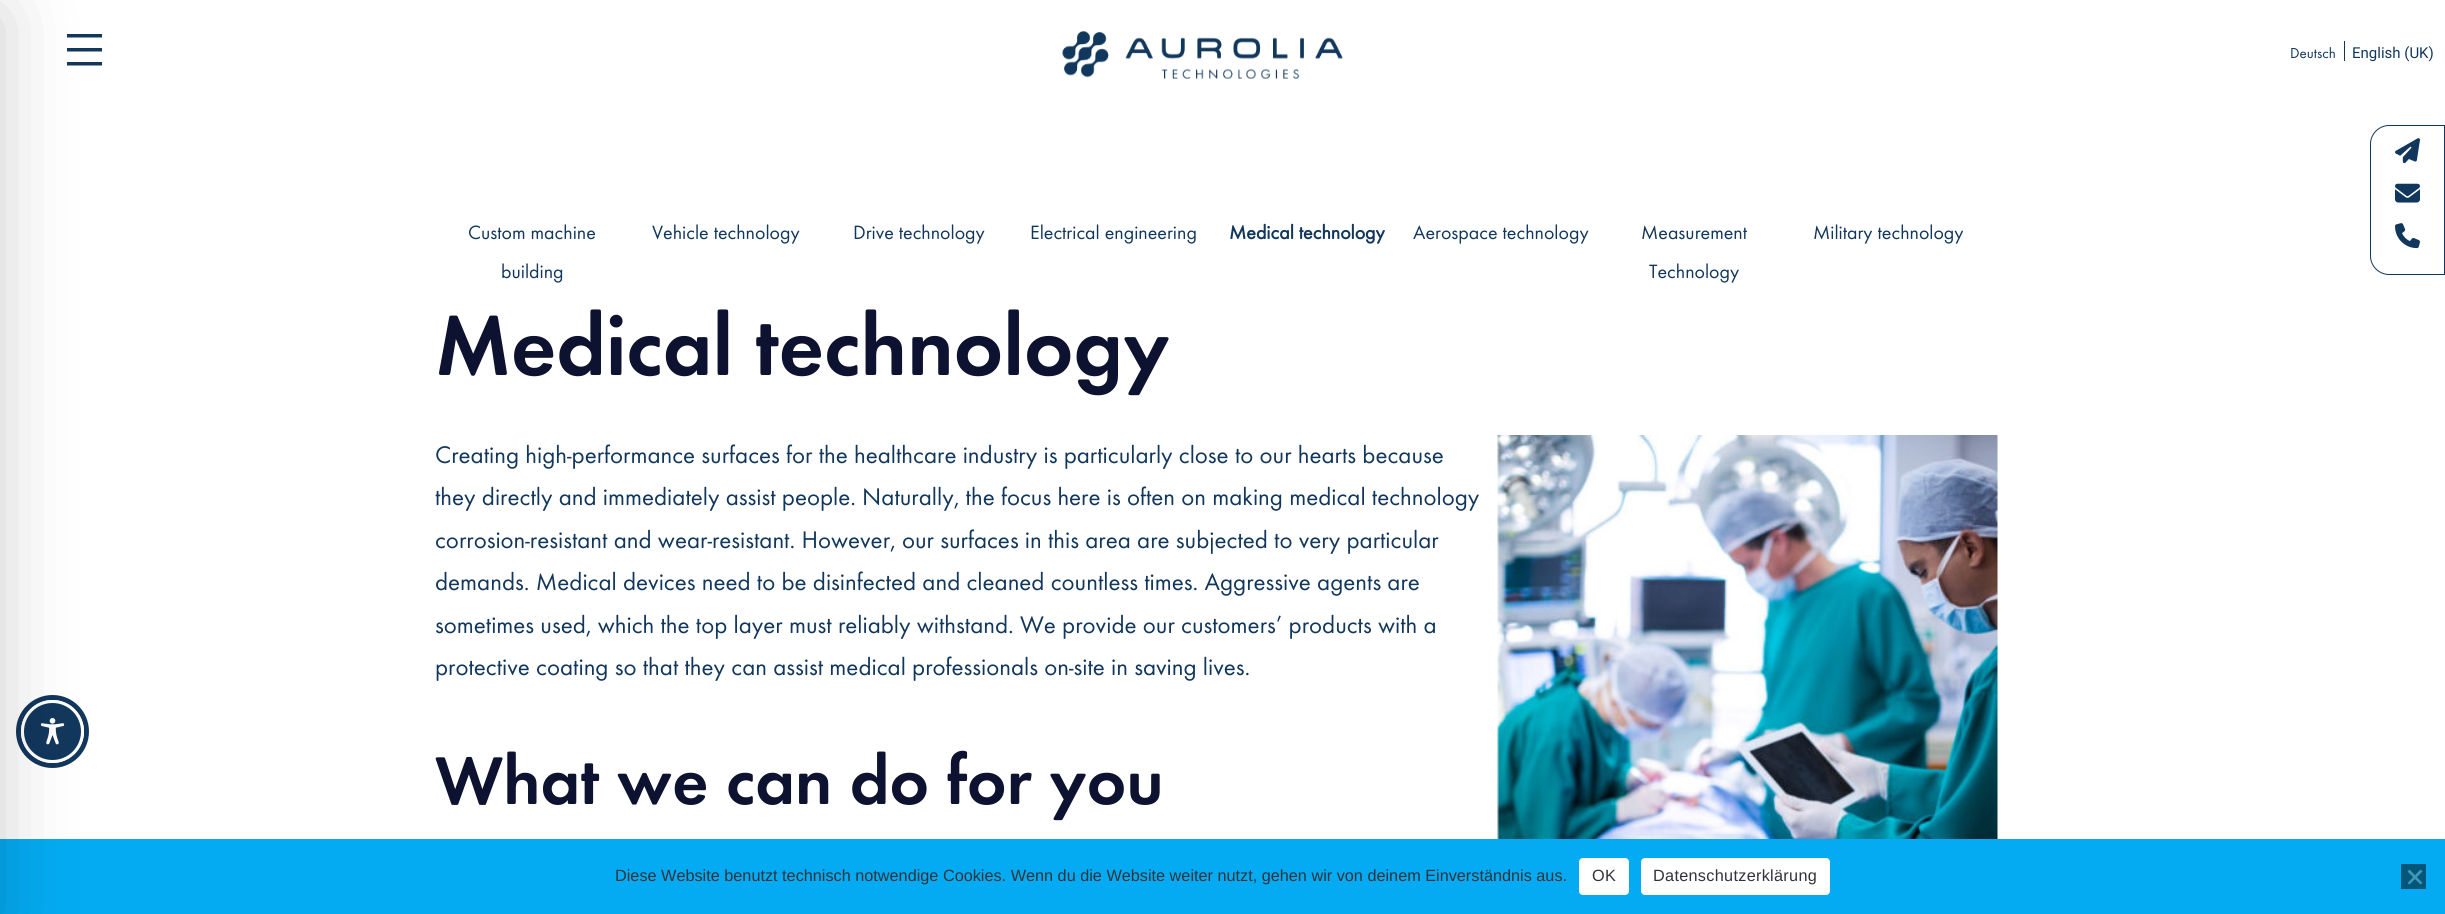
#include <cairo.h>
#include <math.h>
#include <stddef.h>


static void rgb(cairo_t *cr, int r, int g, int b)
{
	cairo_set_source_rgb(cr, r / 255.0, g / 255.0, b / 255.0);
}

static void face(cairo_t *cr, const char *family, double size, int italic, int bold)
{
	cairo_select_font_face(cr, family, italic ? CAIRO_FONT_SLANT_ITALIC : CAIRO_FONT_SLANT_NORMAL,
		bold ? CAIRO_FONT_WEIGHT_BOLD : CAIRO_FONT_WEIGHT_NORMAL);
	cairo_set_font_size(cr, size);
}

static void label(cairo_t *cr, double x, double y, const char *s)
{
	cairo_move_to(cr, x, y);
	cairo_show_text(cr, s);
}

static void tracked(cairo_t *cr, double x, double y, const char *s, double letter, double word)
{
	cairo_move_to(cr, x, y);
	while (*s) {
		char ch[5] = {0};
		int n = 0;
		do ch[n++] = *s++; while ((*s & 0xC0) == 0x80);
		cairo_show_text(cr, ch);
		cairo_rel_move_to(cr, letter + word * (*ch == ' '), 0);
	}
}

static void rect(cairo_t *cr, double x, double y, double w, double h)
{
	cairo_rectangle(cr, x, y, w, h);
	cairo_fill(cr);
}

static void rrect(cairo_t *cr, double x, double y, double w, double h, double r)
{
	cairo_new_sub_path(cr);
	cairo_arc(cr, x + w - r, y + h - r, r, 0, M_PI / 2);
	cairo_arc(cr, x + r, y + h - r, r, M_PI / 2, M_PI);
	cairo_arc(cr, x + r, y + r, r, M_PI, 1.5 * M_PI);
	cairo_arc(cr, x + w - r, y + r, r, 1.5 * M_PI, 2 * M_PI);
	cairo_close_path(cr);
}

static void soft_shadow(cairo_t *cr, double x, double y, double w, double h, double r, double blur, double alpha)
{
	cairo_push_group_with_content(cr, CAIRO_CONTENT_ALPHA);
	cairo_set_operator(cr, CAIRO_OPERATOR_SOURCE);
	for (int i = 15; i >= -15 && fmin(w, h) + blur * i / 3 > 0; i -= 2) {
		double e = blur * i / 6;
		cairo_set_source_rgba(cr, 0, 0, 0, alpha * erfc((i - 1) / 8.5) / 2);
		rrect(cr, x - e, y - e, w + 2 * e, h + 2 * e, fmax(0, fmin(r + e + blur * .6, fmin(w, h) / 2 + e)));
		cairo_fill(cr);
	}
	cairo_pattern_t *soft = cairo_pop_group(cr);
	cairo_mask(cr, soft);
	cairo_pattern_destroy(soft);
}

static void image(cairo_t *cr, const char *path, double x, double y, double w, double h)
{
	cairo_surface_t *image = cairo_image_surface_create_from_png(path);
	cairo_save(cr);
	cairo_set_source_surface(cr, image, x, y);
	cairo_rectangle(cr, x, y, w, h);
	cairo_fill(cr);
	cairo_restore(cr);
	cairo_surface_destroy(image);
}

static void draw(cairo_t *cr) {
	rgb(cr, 255, 255, 255);
	cairo_paint(cr);
	rgb(cr, 18, 55, 92);
	cairo_set_fill_rule(cr, CAIRO_FILL_RULE_EVEN_ODD);
	cairo_new_path(cr);
	cairo_move_to(cr, 67, 34);
	cairo_line_to(cr, 102, 34);
	cairo_line_to(cr, 102, 37.5);
	cairo_line_to(cr, 67, 37.5);
	cairo_close_path(cr);
	cairo_move_to(cr, 67, 48);
	cairo_line_to(cr, 102, 48);
	cairo_line_to(cr, 102, 51.5);
	cairo_line_to(cr, 67, 51.5);
	cairo_close_path(cr);
	cairo_move_to(cr, 102, 62);
	cairo_line_to(cr, 67, 62);
	cairo_line_to(cr, 67, 65.5);
	cairo_line_to(cr, 102, 65.5);
	cairo_close_path(cr);
	cairo_fill(cr);
	cairo_arc(cr, 52.5, 731.5, 34, 0, 2 * M_PI);
	cairo_set_line_width(cr, 5);
	cairo_stroke(cr);
	cairo_arc(cr, 52.5, 731.5, 30, 0, 2 * M_PI);
	cairo_fill_preserve(cr);
	rgb(cr, 255, 255, 255);
	cairo_set_line_width(cr, 3);
	cairo_stroke(cr);
	image(cr, "image5.png", 40, 718, 25, 27);
	rgb(cr, 4, 171, 242);
	rect(cr, 0, 839, 2445, 75);
	rgb(cr, 0, 0, 0);
	soft_shadow(cr, -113, 13, 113, 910, 0, 37.5, 0.2);
	image(cr, "image0.png", 1062, 31, 281, 48);
	rgb(cr, 18, 55, 92);
	rect(cr, 2344, 41, 1, 20);
	face(cr, "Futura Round", 15, 0, 0);
	label(cr, 2290, 58, "Deutsch");
	face(cr, "Roboto", 15, 0, 0);
	label(cr, 2352, 58, "English (UK)");
	face(cr, "Futura Round", 20, 0, 0);
	label(cr, 468, 239, "Custom machine");
	label(cr, 501, 278, "building");
	label(cr, 652, 239, "Vehicle technology");
	label(cr, 853, 239, "Drive technology");
	label(cr, 1030, 239, "Electrical engineering");
	face(cr, "Futura Round", 20, 0, 1);
	label(cr, 1229, 239, "Medical technology");
	face(cr, "Futura Round", 20, 0, 0);
	label(cr, 1413, 239, "Aerospace technology");
	label(cr, 1641, 239, "Measurement");
	label(cr, 1649, 278, "Technology");
	label(cr, 1813, 239, "Military technology");
	face(cr, "Futura Round SemiBold", 87.5, 0, 0);
	rgb(cr, 12, 18, 47);
	label(cr, 435, 375, "Medical technology");
	face(cr, "Futura Round", 25, 0, 0);
	rgb(cr, 18, 55, 92);
	label(cr, 435, 463, "Creating high-performance surfaces for the healthcare industry is particularly close to our hearts because");
	label(cr, 435, 505, "they directly and immediately assist people. Naturally, the focus here is often on making medical technology");
	label(cr, 435, 548, "corrosion-resistant and wear-resistant. However, our surfaces in this area are subjected to very particular");
	label(cr, 435, 590, "demands. Medical devices need to be disinfected and cleaned countless times. Aggressive agents are");
	label(cr, 435, 633, "sometimes used, which the top layer must reliably withstand. We provide our customers’ products with a");
	label(cr, 435, 675, "protective coating so that they can assist medical professionals on-site in saving lives.");
	face(cr, "Futura Round SemiBold", 70, 0, 0);
	rgb(cr, 12, 18, 47);
	label(cr, 435, 804, "What we can do for you");
	image(cr, "image1.png", 1497, 435, 501, 404);
	cairo_new_path(cr);
	cairo_move_to(cr, 2389, 125.5);
	cairo_line_to(cr, 2444.5, 125.5);
	cairo_line_to(cr, 2444.5, 274.5);
	cairo_line_to(cr, 2389, 274.5);
	cairo_curve_to(cr, 2379, 274.5, 2370.5, 266, 2370.5, 256);
	cairo_line_to(cr, 2370.5, 144);
	cairo_curve_to(cr, 2370.5, 134, 2379, 125.5, 2389, 125.5);
	cairo_close_path(cr);
	rgb(cr, 18, 55, 92);
	cairo_set_line_width(cr, 1);
	cairo_stroke(cr);
	image(cr, "image2.png", 2395, 138, 25, 26);
	image(cr, "image3.png", 2395, 183, 25, 20);
	image(cr, "image4.png", 2395, 223, 25, 26);
	face(cr, "Liberation Sans", 16.25, 0, 0);
	rgb(cr, 50, 50, 58);
	label(cr, 615, 881, "Diese Website benutzt technisch notwendige Cookies. Wenn du die Website weiter nutzt, gehen wir von deinem Einverständnis aus.");
	rgb(cr, 255, 255, 255);
	rrect(cr, 1579, 858, 50, 37, 4);
	cairo_fill(cr);
	rgb(cr, 50, 50, 58);
	tracked(cr, 1592, 881, "OK", 0.3, 0);
	rgb(cr, 255, 255, 255);
	rrect(cr, 1641, 858, 189, 37, 4);
	cairo_fill(cr);
	rgb(cr, 50, 50, 58);
	tracked(cr, 1653, 881, "Datenschutzerklärung", 0.3, 0);
	rgb(cr, 2, 86, 121);
	rect(cr, 2401, 864, 25, 25);
	rgb(cr, 66, 150, 185);
	cairo_set_fill_rule(cr, CAIRO_FILL_RULE_WINDING);
	cairo_new_path(cr);
	cairo_move_to(cr, 2420.5, 869.5);
	cairo_line_to(cr, 2422.5, 871.5);
	cairo_line_to(cr, 2409.5, 884.5);
	cairo_line_to(cr, 2407.5, 883);
	cairo_close_path(cr);
	cairo_fill(cr);
	cairo_new_path(cr);
	cairo_move_to(cr, 2407.5, 871.5);
	cairo_line_to(cr, 2409.5, 869.5);
	cairo_line_to(cr, 2422.5, 883);
	cairo_line_to(cr, 2420.5, 884.5);
	cairo_close_path(cr);
	cairo_fill(cr);
}

int main(void) {
	cairo_surface_t *surface = cairo_image_surface_create(CAIRO_FORMAT_RGB24, 2445, 914);
	cairo_t *cr = cairo_create(surface);
	cairo_font_options_t *options = cairo_font_options_create();
	cairo_font_options_set_hint_metrics(options, CAIRO_HINT_METRICS_OFF);
	cairo_font_options_set_hint_style(options, CAIRO_HINT_STYLE_NONE);
	cairo_set_font_options(cr, options);
	cairo_set_miter_limit(cr, 4);
	draw(cr);
	cairo_surface_write_to_png(surface, "render.png");
	cairo_font_options_destroy(options);
	cairo_destroy(cr);
	cairo_surface_destroy(surface);
	return 0;
}
